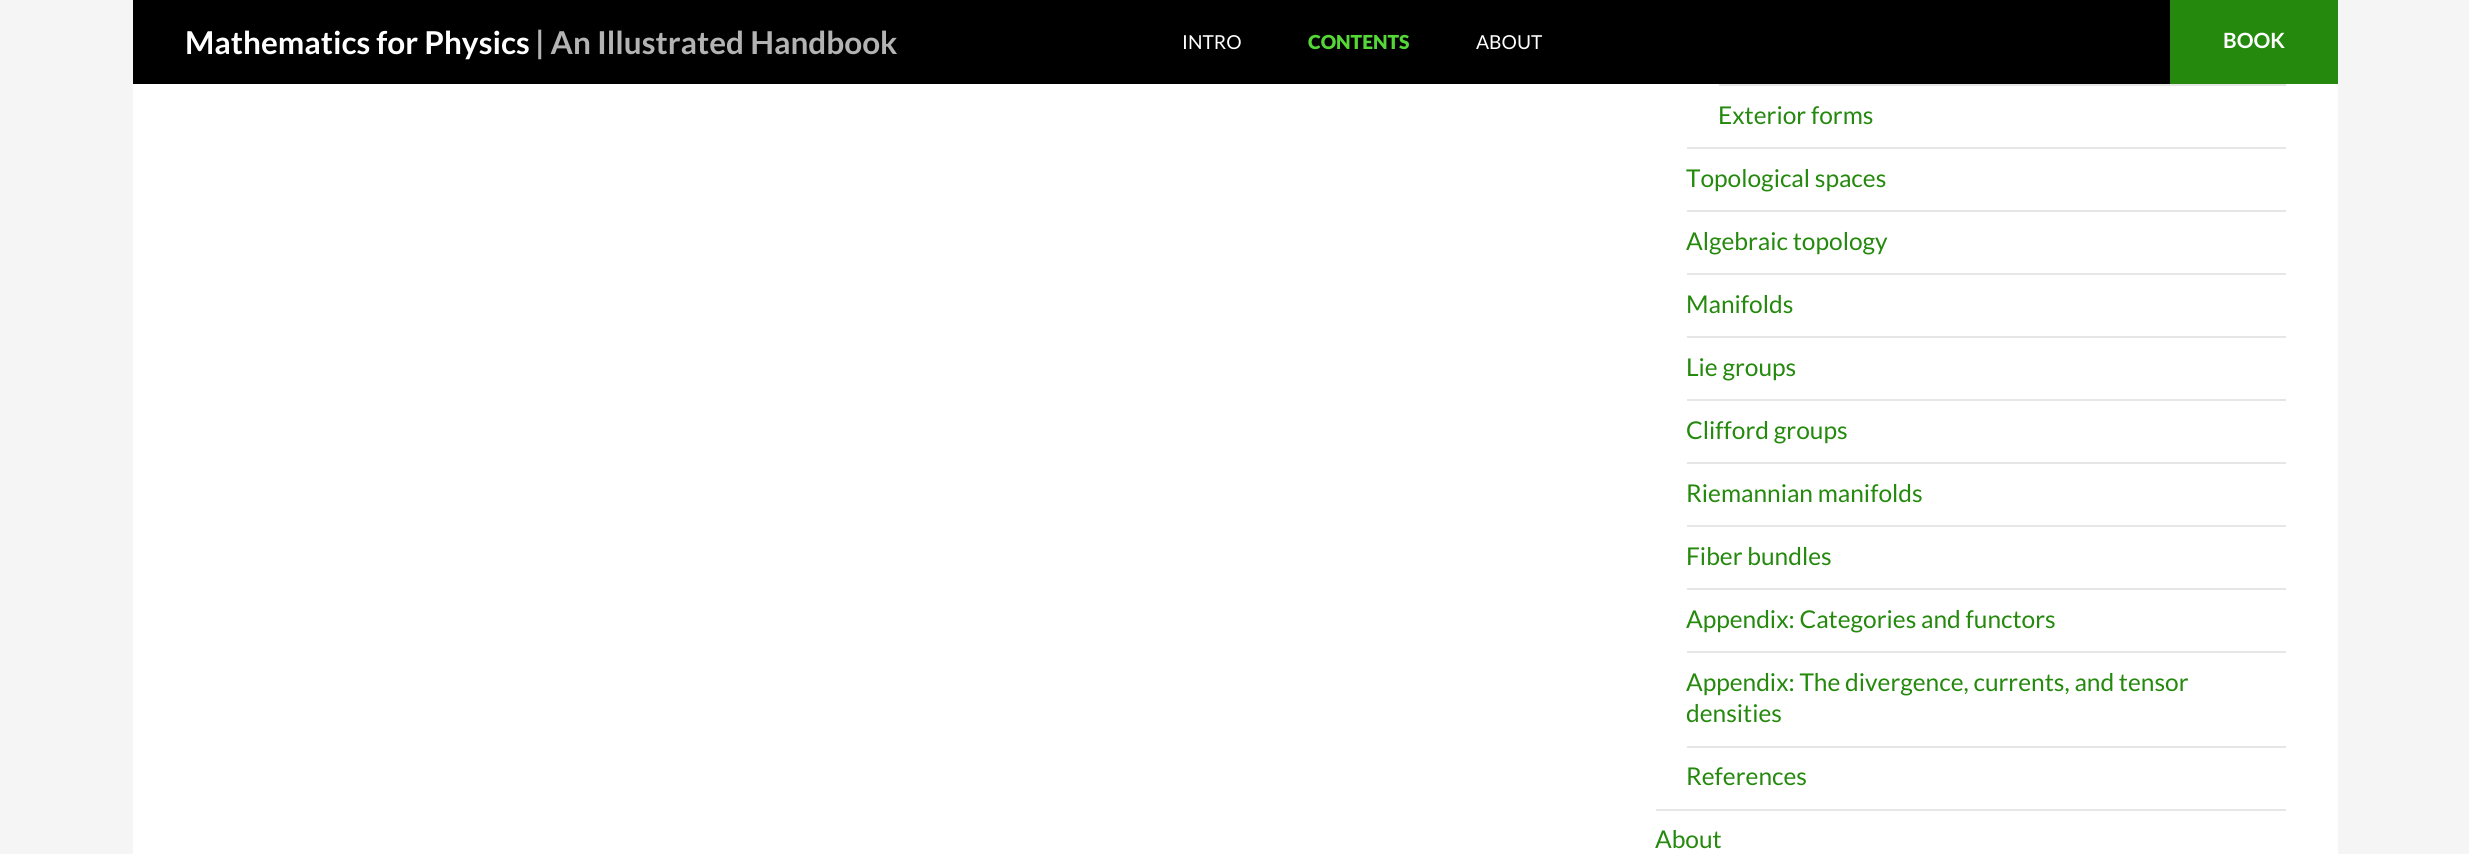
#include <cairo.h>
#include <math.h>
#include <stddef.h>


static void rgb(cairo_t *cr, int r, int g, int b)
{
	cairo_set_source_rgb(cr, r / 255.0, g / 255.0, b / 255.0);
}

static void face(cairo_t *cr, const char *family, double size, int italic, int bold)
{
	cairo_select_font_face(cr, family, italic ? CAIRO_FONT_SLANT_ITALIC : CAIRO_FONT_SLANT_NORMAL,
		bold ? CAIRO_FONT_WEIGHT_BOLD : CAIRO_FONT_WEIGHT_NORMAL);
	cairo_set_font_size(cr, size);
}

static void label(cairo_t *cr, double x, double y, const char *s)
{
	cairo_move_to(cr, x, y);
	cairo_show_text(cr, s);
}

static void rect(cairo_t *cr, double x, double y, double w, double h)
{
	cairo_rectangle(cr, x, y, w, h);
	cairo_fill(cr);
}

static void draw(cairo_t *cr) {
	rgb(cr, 245, 245, 245);
	cairo_paint(cr);
	rgb(cr, 255, 255, 255);
	rect(cr, 133, 84, 2205, 770);
	rgb(cr, 0, 0, 0);
	rect(cr, 133, 0, 2037, 84);
	face(cr, "Lato", 31.5, 0, 1);
	rgb(cr, 255, 255, 255);
	label(cr, 185, 54, "Mathematics for Physics");
	rgb(cr, 179, 179, 179);
	label(cr, 535, 54, "| An Illustrated Handbook");
	face(cr, "Lato", 19.25, 0, 0);
	rgb(cr, 255, 255, 255);
	label(cr, 1182, 49, "INTRO");
	face(cr, "Lato Black", 19.25, 0, 0);
	rgb(cr, 85, 215, 55);
	label(cr, 1308, 49, "CONTENTS");
	face(cr, "Lato", 19.25, 0, 0);
	rgb(cr, 255, 255, 255);
	label(cr, 1476, 49, "ABOUT");
	rgb(cr, 36, 137, 13);
	rect(cr, 2170, 0, 168, 84);
	face(cr, "Lato", 21, 0, 1);
	rgb(cr, 255, 255, 255);
	label(cr, 2223, 48, "BOOK");
	rgb(cr, 230, 230, 230);
	rect(cr, 1719, 84, 567, 2);
	face(cr, "Lato", 24.5, 0, 0);
	rgb(cr, 36, 137, 13);
	label(cr, 1718, 124, "Exterior forms");
	rgb(cr, 230, 230, 230);
	rect(cr, 1687, 147, 599, 2);
	rgb(cr, 36, 137, 13);
	label(cr, 1686, 187, "Topological spaces");
	rgb(cr, 230, 230, 230);
	rect(cr, 1687, 210, 599, 2);
	rgb(cr, 36, 137, 13);
	label(cr, 1686, 250, "Algebraic topology");
	rgb(cr, 230, 230, 230);
	rect(cr, 1687, 273, 599, 2);
	rgb(cr, 36, 137, 13);
	label(cr, 1686, 313, "Manifolds");
	rgb(cr, 230, 230, 230);
	rect(cr, 1687, 336, 599, 2);
	rgb(cr, 36, 137, 13);
	label(cr, 1686, 376, "Lie groups");
	rgb(cr, 230, 230, 230);
	rect(cr, 1687, 399, 599, 2);
	rgb(cr, 36, 137, 13);
	label(cr, 1686, 439, "Clifford groups");
	rgb(cr, 230, 230, 230);
	rect(cr, 1687, 462, 599, 2);
	rgb(cr, 36, 137, 13);
	label(cr, 1686, 502, "Riemannian manifolds");
	rgb(cr, 230, 230, 230);
	rect(cr, 1687, 525, 599, 2);
	rgb(cr, 36, 137, 13);
	label(cr, 1686, 565, "Fiber bundles");
	rgb(cr, 230, 230, 230);
	rect(cr, 1687, 588, 599, 2);
	rgb(cr, 36, 137, 13);
	label(cr, 1686, 628, "Appendix: Categories and functors");
	rgb(cr, 230, 230, 230);
	rect(cr, 1687, 651, 599, 2);
	rgb(cr, 36, 137, 13);
	label(cr, 1686, 691, "Appendix: The divergence, currents, and tensor");
	label(cr, 1686, 722, "densities");
	rgb(cr, 230, 230, 230);
	rect(cr, 1687, 746, 599, 2);
	rgb(cr, 36, 137, 13);
	label(cr, 1686, 785, "References");
	rgb(cr, 230, 230, 230);
	rect(cr, 1656, 809, 630, 2);
	rgb(cr, 36, 137, 13);
	label(cr, 1655, 848, "About");
}

int main(void) {
	cairo_surface_t *surface = cairo_image_surface_create(CAIRO_FORMAT_RGB24, 2469, 854);
	cairo_t *cr = cairo_create(surface);
	cairo_font_options_t *options = cairo_font_options_create();
	cairo_font_options_set_hint_metrics(options, CAIRO_HINT_METRICS_OFF);
	cairo_font_options_set_hint_style(options, CAIRO_HINT_STYLE_NONE);
	cairo_set_font_options(cr, options);
	cairo_set_miter_limit(cr, 4);
	draw(cr);
	cairo_surface_write_to_png(surface, "render.png");
	cairo_font_options_destroy(options);
	cairo_destroy(cr);
	cairo_surface_destroy(surface);
	return 0;
}
